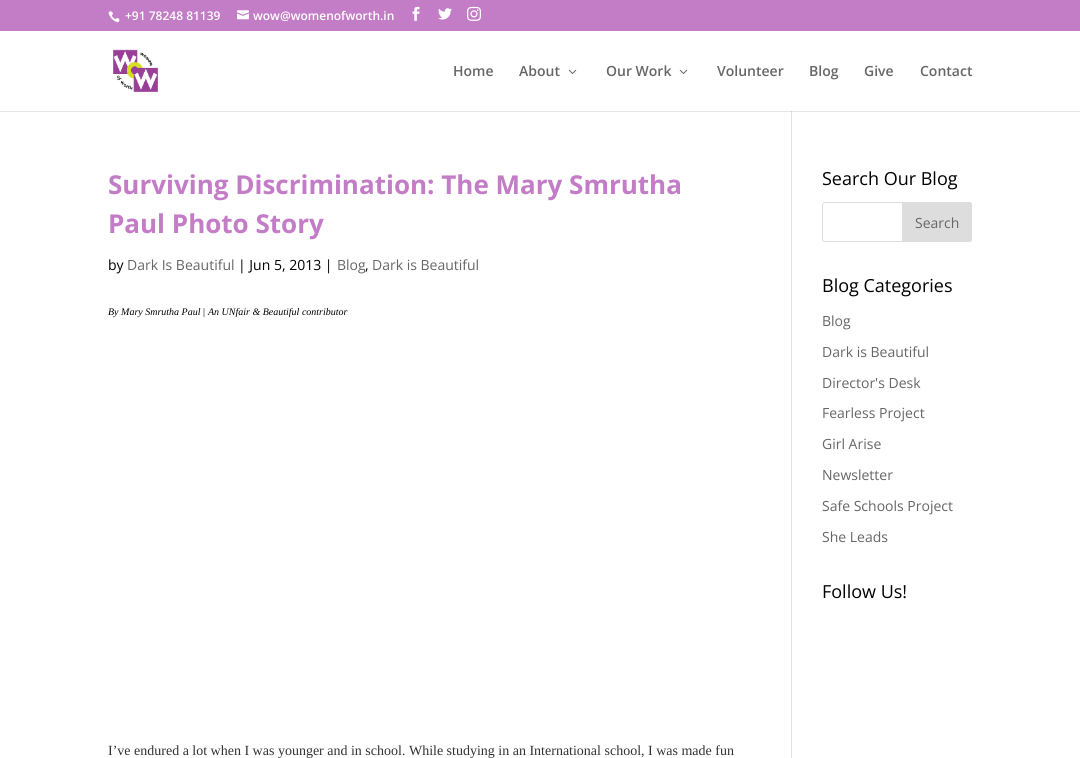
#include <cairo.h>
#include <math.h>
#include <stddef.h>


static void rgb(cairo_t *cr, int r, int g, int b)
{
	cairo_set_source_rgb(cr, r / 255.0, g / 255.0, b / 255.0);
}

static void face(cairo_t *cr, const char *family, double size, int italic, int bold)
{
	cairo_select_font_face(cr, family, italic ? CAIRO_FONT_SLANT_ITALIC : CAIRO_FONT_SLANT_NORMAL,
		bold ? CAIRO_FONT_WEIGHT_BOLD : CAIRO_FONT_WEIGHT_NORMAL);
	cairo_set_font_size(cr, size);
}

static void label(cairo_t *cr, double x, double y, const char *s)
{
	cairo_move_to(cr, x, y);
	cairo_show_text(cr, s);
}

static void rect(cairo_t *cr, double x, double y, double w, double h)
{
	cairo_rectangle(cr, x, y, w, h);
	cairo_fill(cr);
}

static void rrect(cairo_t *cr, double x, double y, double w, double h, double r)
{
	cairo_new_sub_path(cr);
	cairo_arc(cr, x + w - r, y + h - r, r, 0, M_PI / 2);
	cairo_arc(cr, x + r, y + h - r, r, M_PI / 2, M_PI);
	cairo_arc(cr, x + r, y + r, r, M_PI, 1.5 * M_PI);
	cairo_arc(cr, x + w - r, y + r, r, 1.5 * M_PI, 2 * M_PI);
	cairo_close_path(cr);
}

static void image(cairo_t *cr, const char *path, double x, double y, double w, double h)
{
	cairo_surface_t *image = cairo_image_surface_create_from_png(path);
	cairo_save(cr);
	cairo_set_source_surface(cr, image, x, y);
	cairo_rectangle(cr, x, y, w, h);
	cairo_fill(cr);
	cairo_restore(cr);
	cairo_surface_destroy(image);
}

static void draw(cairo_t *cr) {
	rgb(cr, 255, 255, 255);
	cairo_paint(cr);
	rgb(cr, 230, 230, 230);
	rect(cr, 0, 111, 1080, 1);
	rgb(cr, 195, 124, 198);
	rect(cr, 0, 0, 1080, 31);
	image(cr, "image0.png", 108, 11, 12, 12);
	face(cr, "Open Sans SemiBold", 12, 0, 0);
	rgb(cr, 255, 255, 255);
	label(cr, 125, 20, "+91 78248 81139");
	image(cr, "image1.png", 237, 10, 12, 10);
	label(cr, 253, 20, "wow@womenofworth.in");
	image(cr, "image2.png", 412, 6, 8, 15);
	image(cr, "image3.png", 438, 8, 14, 12);
	image(cr, "image4.png", 467, 6, 14, 15);
	rgb(cr, 226, 226, 226);
	rect(cr, 791, 107, 1, 651);
	rgb(cr, 255, 255, 255);
	rect(cr, 791, 107, 1, 4);
	image(cr, "image5.png", 113, 49, 45, 43);
	face(cr, "Open Sans SemiBold", 14, 0, 0);
	rgb(cr, 102, 102, 102);
	label(cr, 453, 76, "Home");
	label(cr, 519, 76, "About");
	image(cr, "image6.png", 568, 69, 9, 5);
	label(cr, 606, 76, "Our Work");
	image(cr, "image6.png", 679, 69, 9, 5);
	label(cr, 717, 76, "Volunteer");
	label(cr, 809, 76, "Blog");
	label(cr, 864, 76, "Give");
	label(cr, 920, 76, "Contact");
	rgb(cr, 203, 203, 203);
	rect(cr, 791, 111, 1, 1);
	face(cr, "Open Sans", 26, 0, 1);
	rgb(cr, 195, 124, 198);
	label(cr, 108, 194, "Surviving Discrimination: The Mary Smrutha");
	label(cr, 108, 233, "Paul Photo Story");
	face(cr, "Open Sans", 14, 0, 0);
	rgb(cr, 0, 0, 0);
	label(cr, 108, 270, "by");
	rgb(cr, 102, 102, 102);
	label(cr, 127, 270, "Dark Is Beautiful");
	rgb(cr, 0, 0, 0);
	label(cr, 238, 270, "| Jun 5, 2013 |");
	rgb(cr, 102, 102, 102);
	label(cr, 337, 270, "Blog");
	rgb(cr, 0, 0, 0);
	label(cr, 365, 270, ",");
	rgb(cr, 102, 102, 102);
	label(cr, 372, 270, "Dark is Beautiful");
	face(cr, "Liberation Serif", 10, 1, 0);
	rgb(cr, 0, 0, 0);
	label(cr, 108, 315, "By Mary Smrutha Paul");
	face(cr, "Liberation Serif", 10, 0, 0);
	label(cr, 203, 315, "|");
	face(cr, "Liberation Serif", 10, 1, 0);
	label(cr, 208, 315, "An UNfair & Beautiful contributor");
	face(cr, "Liberation Serif", 14, 0, 0);
	rgb(cr, 51, 51, 51);
	label(cr, 108, 755, "I’ve endured a lot when I was younger and in school. While studying in an International school, I was made fun");
	face(cr, "Open Sans", 18, 0, 0);
	rgb(cr, 0, 0, 0);
	label(cr, 822, 185, "Search Our Blog");
	rrect(cr, 822.5, 202.5, 149, 39, 2.5);
	rgb(cr, 221, 221, 221);
	cairo_set_line_width(cr, 1);
	cairo_stroke(cr);
	cairo_new_path(cr);
	cairo_move_to(cr, 902.5, 202.5);
	cairo_line_to(cr, 969, 202.5);
	cairo_curve_to(cr, 970.5, 202.5, 971.5, 203.5, 971.5, 205);
	cairo_line_to(cr, 971.5, 239);
	cairo_curve_to(cr, 971.5, 240.5, 970.5, 241.5, 969, 241.5);
	cairo_line_to(cr, 902.5, 241.5);
	cairo_close_path(cr);
	cairo_fill_preserve(cr);
	cairo_stroke(cr);
	face(cr, "Open Sans", 14, 0, 0);
	rgb(cr, 102, 102, 102);
	label(cr, 915, 228, "Search");
	face(cr, "Open Sans", 18, 0, 0);
	rgb(cr, 0, 0, 0);
	label(cr, 822, 292, "Blog Categories");
	face(cr, "Open Sans", 14, 0, 0);
	rgb(cr, 102, 102, 102);
	label(cr, 822, 326, "Blog");
	label(cr, 822, 357, "Dark is Beautiful");
	label(cr, 822, 388, "Director's Desk");
	label(cr, 822, 418, "Fearless Project");
	label(cr, 822, 449, "Girl Arise");
	label(cr, 822, 480, "Newsletter");
	label(cr, 822, 511, "Safe Schools Project");
	label(cr, 822, 542, "She Leads");
	face(cr, "Open Sans", 18, 0, 0);
	rgb(cr, 0, 0, 0);
	label(cr, 822, 598, "Follow Us!");
}

int main(void) {
	cairo_surface_t *surface = cairo_image_surface_create(CAIRO_FORMAT_RGB24, 1080, 758);
	cairo_t *cr = cairo_create(surface);
	cairo_font_options_t *options = cairo_font_options_create();
	cairo_font_options_set_hint_metrics(options, CAIRO_HINT_METRICS_OFF);
	cairo_font_options_set_hint_style(options, CAIRO_HINT_STYLE_NONE);
	cairo_set_font_options(cr, options);
	cairo_set_miter_limit(cr, 4);
	draw(cr);
	cairo_surface_write_to_png(surface, "render.png");
	cairo_font_options_destroy(options);
	cairo_destroy(cr);
	cairo_surface_destroy(surface);
	return 0;
}
